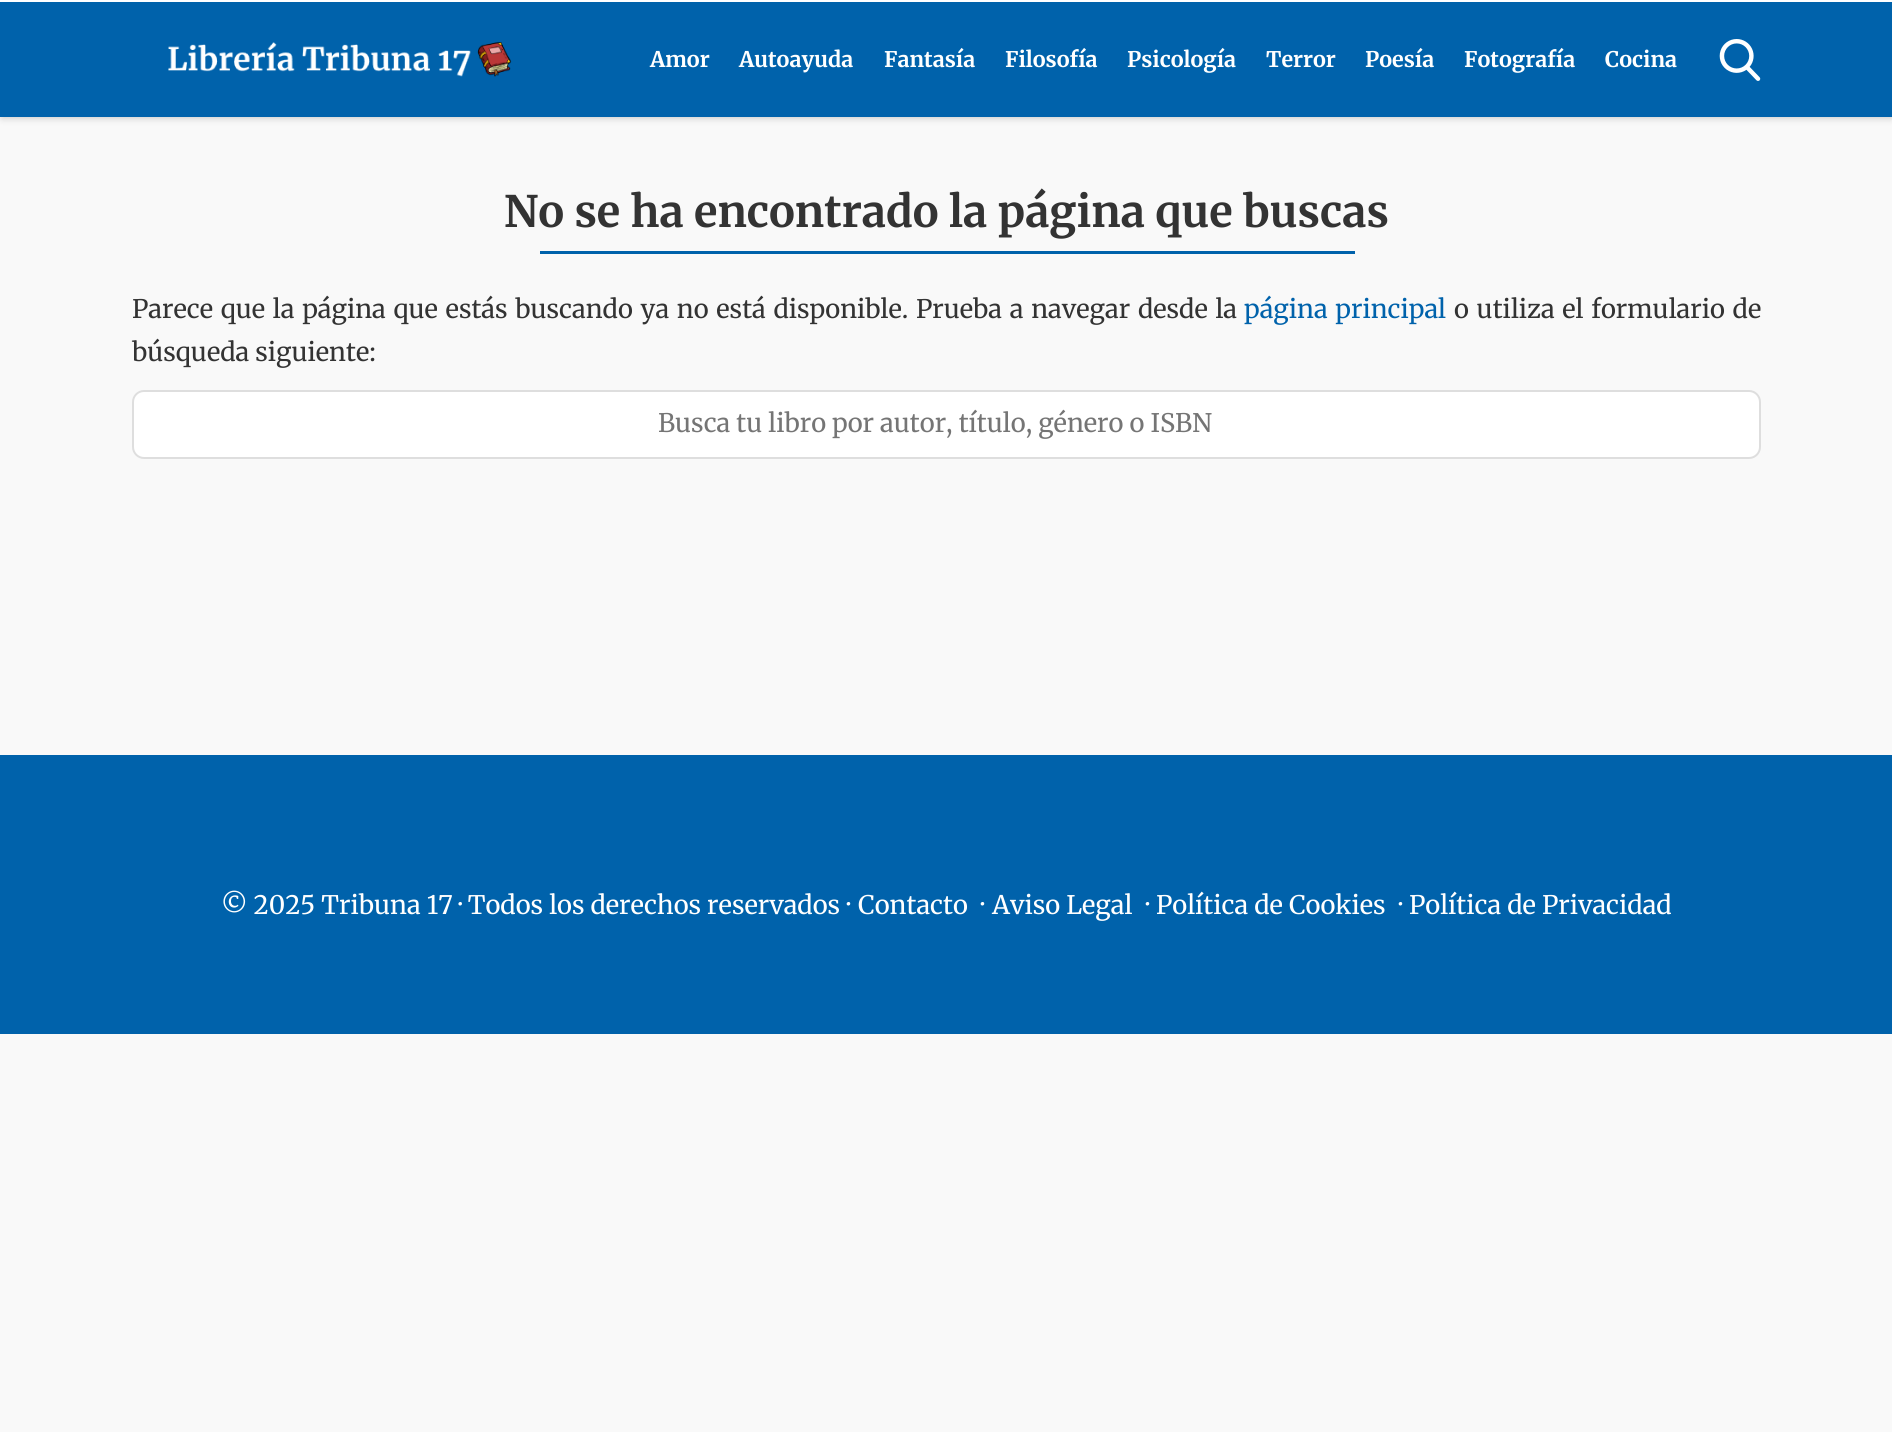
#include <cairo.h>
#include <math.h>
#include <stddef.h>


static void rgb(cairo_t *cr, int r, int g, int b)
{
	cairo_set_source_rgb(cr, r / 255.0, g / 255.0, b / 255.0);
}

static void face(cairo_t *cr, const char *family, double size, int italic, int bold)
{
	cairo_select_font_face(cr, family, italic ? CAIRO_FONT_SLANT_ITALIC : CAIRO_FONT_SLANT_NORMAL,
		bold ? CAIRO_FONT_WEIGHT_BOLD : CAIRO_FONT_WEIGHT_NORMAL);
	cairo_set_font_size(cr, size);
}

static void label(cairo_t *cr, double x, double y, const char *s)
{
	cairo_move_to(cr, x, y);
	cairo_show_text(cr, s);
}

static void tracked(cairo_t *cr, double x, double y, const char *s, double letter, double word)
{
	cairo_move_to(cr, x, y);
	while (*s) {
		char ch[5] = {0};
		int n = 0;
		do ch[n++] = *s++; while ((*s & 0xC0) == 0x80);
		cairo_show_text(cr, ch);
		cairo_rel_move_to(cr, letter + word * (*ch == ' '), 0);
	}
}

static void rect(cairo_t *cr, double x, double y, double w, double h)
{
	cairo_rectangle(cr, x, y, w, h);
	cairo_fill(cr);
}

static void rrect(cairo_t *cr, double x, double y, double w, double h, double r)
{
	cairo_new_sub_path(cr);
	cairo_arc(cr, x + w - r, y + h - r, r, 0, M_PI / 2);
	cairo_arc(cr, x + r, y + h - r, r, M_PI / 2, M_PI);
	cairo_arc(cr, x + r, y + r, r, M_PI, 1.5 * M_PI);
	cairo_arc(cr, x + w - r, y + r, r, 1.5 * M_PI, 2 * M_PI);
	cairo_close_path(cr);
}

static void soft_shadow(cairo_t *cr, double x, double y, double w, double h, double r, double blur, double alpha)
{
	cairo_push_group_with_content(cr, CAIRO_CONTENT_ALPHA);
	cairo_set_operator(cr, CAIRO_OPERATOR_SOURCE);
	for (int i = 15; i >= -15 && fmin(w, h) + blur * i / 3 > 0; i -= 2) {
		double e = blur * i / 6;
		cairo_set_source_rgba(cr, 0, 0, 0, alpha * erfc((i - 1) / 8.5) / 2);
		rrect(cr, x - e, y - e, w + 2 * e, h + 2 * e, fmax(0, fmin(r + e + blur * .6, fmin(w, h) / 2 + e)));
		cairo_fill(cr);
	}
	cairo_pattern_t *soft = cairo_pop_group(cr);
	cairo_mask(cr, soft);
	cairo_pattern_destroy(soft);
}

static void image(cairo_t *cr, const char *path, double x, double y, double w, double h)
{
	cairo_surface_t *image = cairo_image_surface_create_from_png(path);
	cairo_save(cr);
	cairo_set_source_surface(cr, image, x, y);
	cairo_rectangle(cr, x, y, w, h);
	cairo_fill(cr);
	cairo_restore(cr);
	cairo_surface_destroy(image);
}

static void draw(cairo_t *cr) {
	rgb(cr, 249, 249, 249);
	cairo_paint(cr);
	rgb(cr, 0, 0, 0);
	soft_shadow(cr, 2, 3, 1890, 114, 0, 4, 0.25);
	rgb(cr, 0, 98, 171);
	rect(cr, 0, 2, 1892, 115);
	rgb(cr, 255, 255, 255);
	rect(cr, 0, 0, 1892, 2);
	image(cr, "image0.png", 168, 42, 344, 35);
	face(cr, "Merriweather", 21.5, 0, 1);
	label(cr, 650, 67, "Amor");
	label(cr, 739, 67, "Autoayuda");
	label(cr, 884, 67, "Fantasía");
	label(cr, 1005, 67, "Filosofía");
	label(cr, 1127, 67, "Psicología");
	label(cr, 1266, 67, "Terror");
	label(cr, 1365, 67, "Poesía");
	label(cr, 1464, 67, "Fotografía");
	label(cr, 1605, 67, "Cocina");
	image(cr, "image1.png", 1719, 39, 42, 42);
	face(cr, "Merriweather", 43.35, 0, 1);
	rgb(cr, 51, 51, 51);
	label(cr, 504, 227, "No se ha encontrado la página que buscas");
	rgb(cr, 0, 98, 171);
	rect(cr, 540, 251, 815, 3);
	face(cr, "Merriweather", 25.5, 0, 0);
	rgb(cr, 51, 51, 51);
	tracked(cr, 132, 318, "Parece que la página que estás buscando ya no está disponible. Prueba a navegar desde la", 0, 1.7);
	rgb(cr, 0, 98, 171);
	tracked(cr, 1244, 318, "página principal", 0, 1.7);
	rgb(cr, 51, 51, 51);
	tracked(cr, 1454, 318, "o utiliza el formulario de", 0, 1.7);
	label(cr, 132, 361, "búsqueda siguiente:");
	rgb(cr, 255, 255, 255);
	rrect(cr, 133, 391, 1627, 67, 11);
	cairo_fill_preserve(cr);
	rgb(cr, 222, 222, 222);
	cairo_stroke(cr);
	rgb(cr, 117, 117, 117);
	label(cr, 658, 432, "Busca tu libro por autor, título, género o ISBN");
	rgb(cr, 0, 98, 171);
	rect(cr, 0, 755, 1892, 279);
	rgb(cr, 255, 255, 255);
	label(cr, 221, 914, "© 2025 Tribuna 17 · Todos los derechos reservados");
	label(cr, 847, 914, "·");
	label(cr, 858, 914, "Contacto");
	label(cr, 981, 914, "·");
	label(cr, 992, 914, "Aviso Legal");
	label(cr, 1146, 914, "·");
	label(cr, 1156, 914, "Política de Cookies");
	label(cr, 1399, 914, "·");
	label(cr, 1409, 914, "Política de Privacidad");
}

int main(void) {
	cairo_surface_t *surface = cairo_image_surface_create(CAIRO_FORMAT_RGB24, 1892, 1432);
	cairo_t *cr = cairo_create(surface);
	cairo_font_options_t *options = cairo_font_options_create();
	cairo_font_options_set_hint_metrics(options, CAIRO_HINT_METRICS_OFF);
	cairo_font_options_set_hint_style(options, CAIRO_HINT_STYLE_NONE);
	cairo_set_font_options(cr, options);
	cairo_set_miter_limit(cr, 4);
	draw(cr);
	cairo_surface_write_to_png(surface, "render.png");
	cairo_font_options_destroy(options);
	cairo_destroy(cr);
	cairo_surface_destroy(surface);
	return 0;
}
